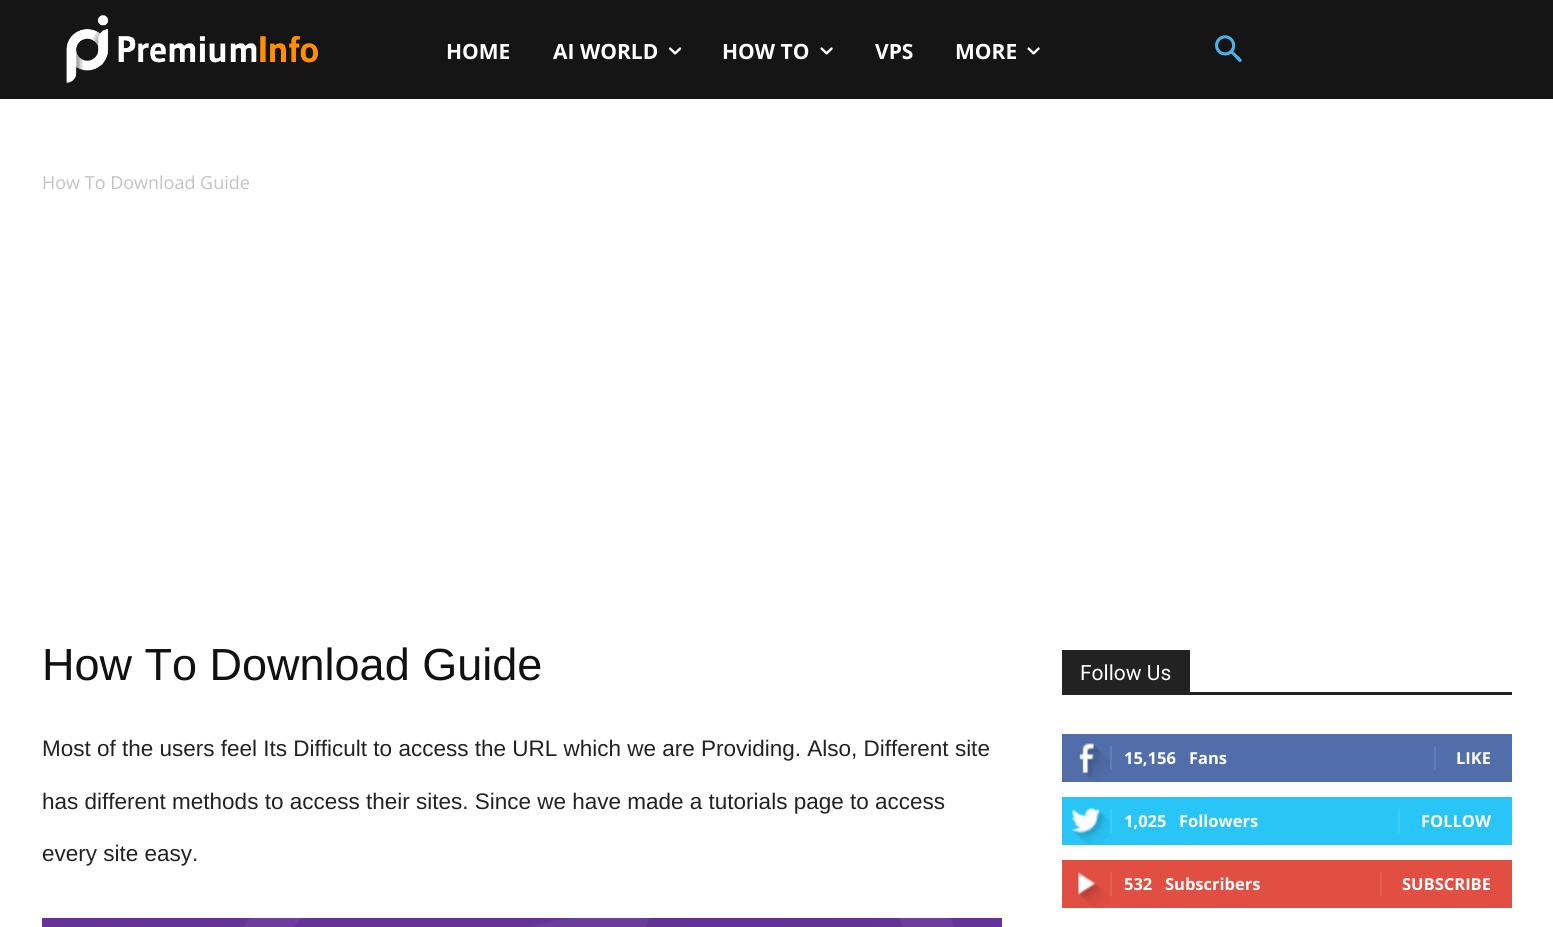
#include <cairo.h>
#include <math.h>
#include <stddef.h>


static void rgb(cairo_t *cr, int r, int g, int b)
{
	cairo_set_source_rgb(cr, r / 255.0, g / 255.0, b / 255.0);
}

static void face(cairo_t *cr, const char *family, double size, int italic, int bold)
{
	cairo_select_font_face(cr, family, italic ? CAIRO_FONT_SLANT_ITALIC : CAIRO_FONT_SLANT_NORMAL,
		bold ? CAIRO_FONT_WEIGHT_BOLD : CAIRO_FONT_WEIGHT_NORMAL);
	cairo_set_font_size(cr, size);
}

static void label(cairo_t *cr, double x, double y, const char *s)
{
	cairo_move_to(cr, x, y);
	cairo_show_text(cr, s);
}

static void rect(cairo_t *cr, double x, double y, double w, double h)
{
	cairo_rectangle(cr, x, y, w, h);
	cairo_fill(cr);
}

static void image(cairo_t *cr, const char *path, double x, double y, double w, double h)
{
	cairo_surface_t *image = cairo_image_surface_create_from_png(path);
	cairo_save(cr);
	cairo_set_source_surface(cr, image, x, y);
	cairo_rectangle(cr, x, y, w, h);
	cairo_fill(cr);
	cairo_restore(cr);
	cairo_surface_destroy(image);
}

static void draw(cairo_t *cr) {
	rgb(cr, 255, 255, 255);
	cairo_paint(cr);
	rgb(cr, 21, 21, 21);
	rect(cr, 0, 0, 1553, 99);
	image(cr, "image0.png", 66, 15, 253, 68);
	face(cr, "Open Sans", 21, 0, 1);
	rgb(cr, 255, 255, 255);
	label(cr, 446, 59, "HOME");
	label(cr, 553, 59, "AI WORLD");
	image(cr, "image1.png", 669, 47, 13, 8);
	label(cr, 722, 59, "HOW TO");
	image(cr, "image2.png", 820, 47, 13, 8);
	label(cr, 875, 59, "VPS");
	label(cr, 955, 59, "MORE");
	image(cr, "image2.png", 1027, 47, 13, 8);
	image(cr, "image3.png", 1215, 35, 27, 27);
	face(cr, "Open Sans", 18, 0, 0);
	rgb(cr, 195, 195, 195);
	label(cr, 42, 189, "How To Download Guide");
	face(cr, "Liberation Sans", 45, 0, 0);
	rgb(cr, 17, 17, 17);
	label(cr, 42, 680, "How To Download Guide");
	face(cr, "Liberation Sans", 22.5, 0, 0);
	rgb(cr, 34, 34, 34);
	label(cr, 42, 756, "Most of the users feel Its Difficult to access the URL which we are Providing. Also, Different site");
	label(cr, 42, 809, "has different methods to access their sites. Since we have made a tutorials page to access");
	label(cr, 42, 861, "every site easy.");
	image(cr, "image4.png", 42, 918, 960, 9);
	rect(cr, 1062, 692, 450, 3);
	rect(cr, 1062, 650, 128, 42);
	face(cr, "Roboto", 21, 0, 0);
	rgb(cr, 255, 255, 255);
	label(cr, 1080, 680, "Follow Us");
	rgb(cr, 81, 110, 171);
	rect(cr, 1062, 734, 450, 48);
	image(cr, "image5.png", 1079, 743, 31, 38);
	rgb(cr, 98, 125, 179);
	rect(cr, 1110, 746, 2, 24);
	face(cr, "Open Sans", 16.5, 0, 1);
	rgb(cr, 255, 255, 255);
	label(cr, 1124, 764, "15,156");
	label(cr, 1189, 764, "Fans");
	rgb(cr, 98, 125, 179);
	rect(cr, 1434, 746, 2, 24);
	rgb(cr, 255, 255, 255);
	label(cr, 1456, 764, "LIKE");
	rgb(cr, 41, 197, 246);
	rect(cr, 1062, 797, 450, 48);
	image(cr, "image6.png", 1071, 807, 39, 38);
	rgb(cr, 62, 203, 247);
	rect(cr, 1110, 809, 2, 24);
	rgb(cr, 255, 255, 255);
	label(cr, 1124, 827, "1,025");
	label(cr, 1179, 827, "Followers");
	rgb(cr, 62, 203, 247);
	rect(cr, 1398, 809, 2, 24);
	rgb(cr, 255, 255, 255);
	label(cr, 1421, 827, "FOLLOW");
	rgb(cr, 225, 78, 66);
	rect(cr, 1062, 860, 450, 48);
	image(cr, "image7.png", 1078, 872, 32, 35);
	rgb(cr, 228, 96, 85);
	rect(cr, 1110, 872, 2, 24);
	rgb(cr, 255, 255, 255);
	label(cr, 1124, 890, "532");
	label(cr, 1165, 890, "Subscribers");
	rgb(cr, 228, 96, 85);
	rect(cr, 1380, 872, 2, 24);
	rgb(cr, 255, 255, 255);
	label(cr, 1402, 890, "SUBSCRIBE");
}

int main(void) {
	cairo_surface_t *surface = cairo_image_surface_create(CAIRO_FORMAT_RGB24, 1553, 927);
	cairo_t *cr = cairo_create(surface);
	cairo_font_options_t *options = cairo_font_options_create();
	cairo_font_options_set_hint_metrics(options, CAIRO_HINT_METRICS_OFF);
	cairo_font_options_set_hint_style(options, CAIRO_HINT_STYLE_NONE);
	cairo_set_font_options(cr, options);
	cairo_set_miter_limit(cr, 4);
	draw(cr);
	cairo_surface_write_to_png(surface, "render.png");
	cairo_font_options_destroy(options);
	cairo_destroy(cr);
	cairo_surface_destroy(surface);
	return 0;
}
